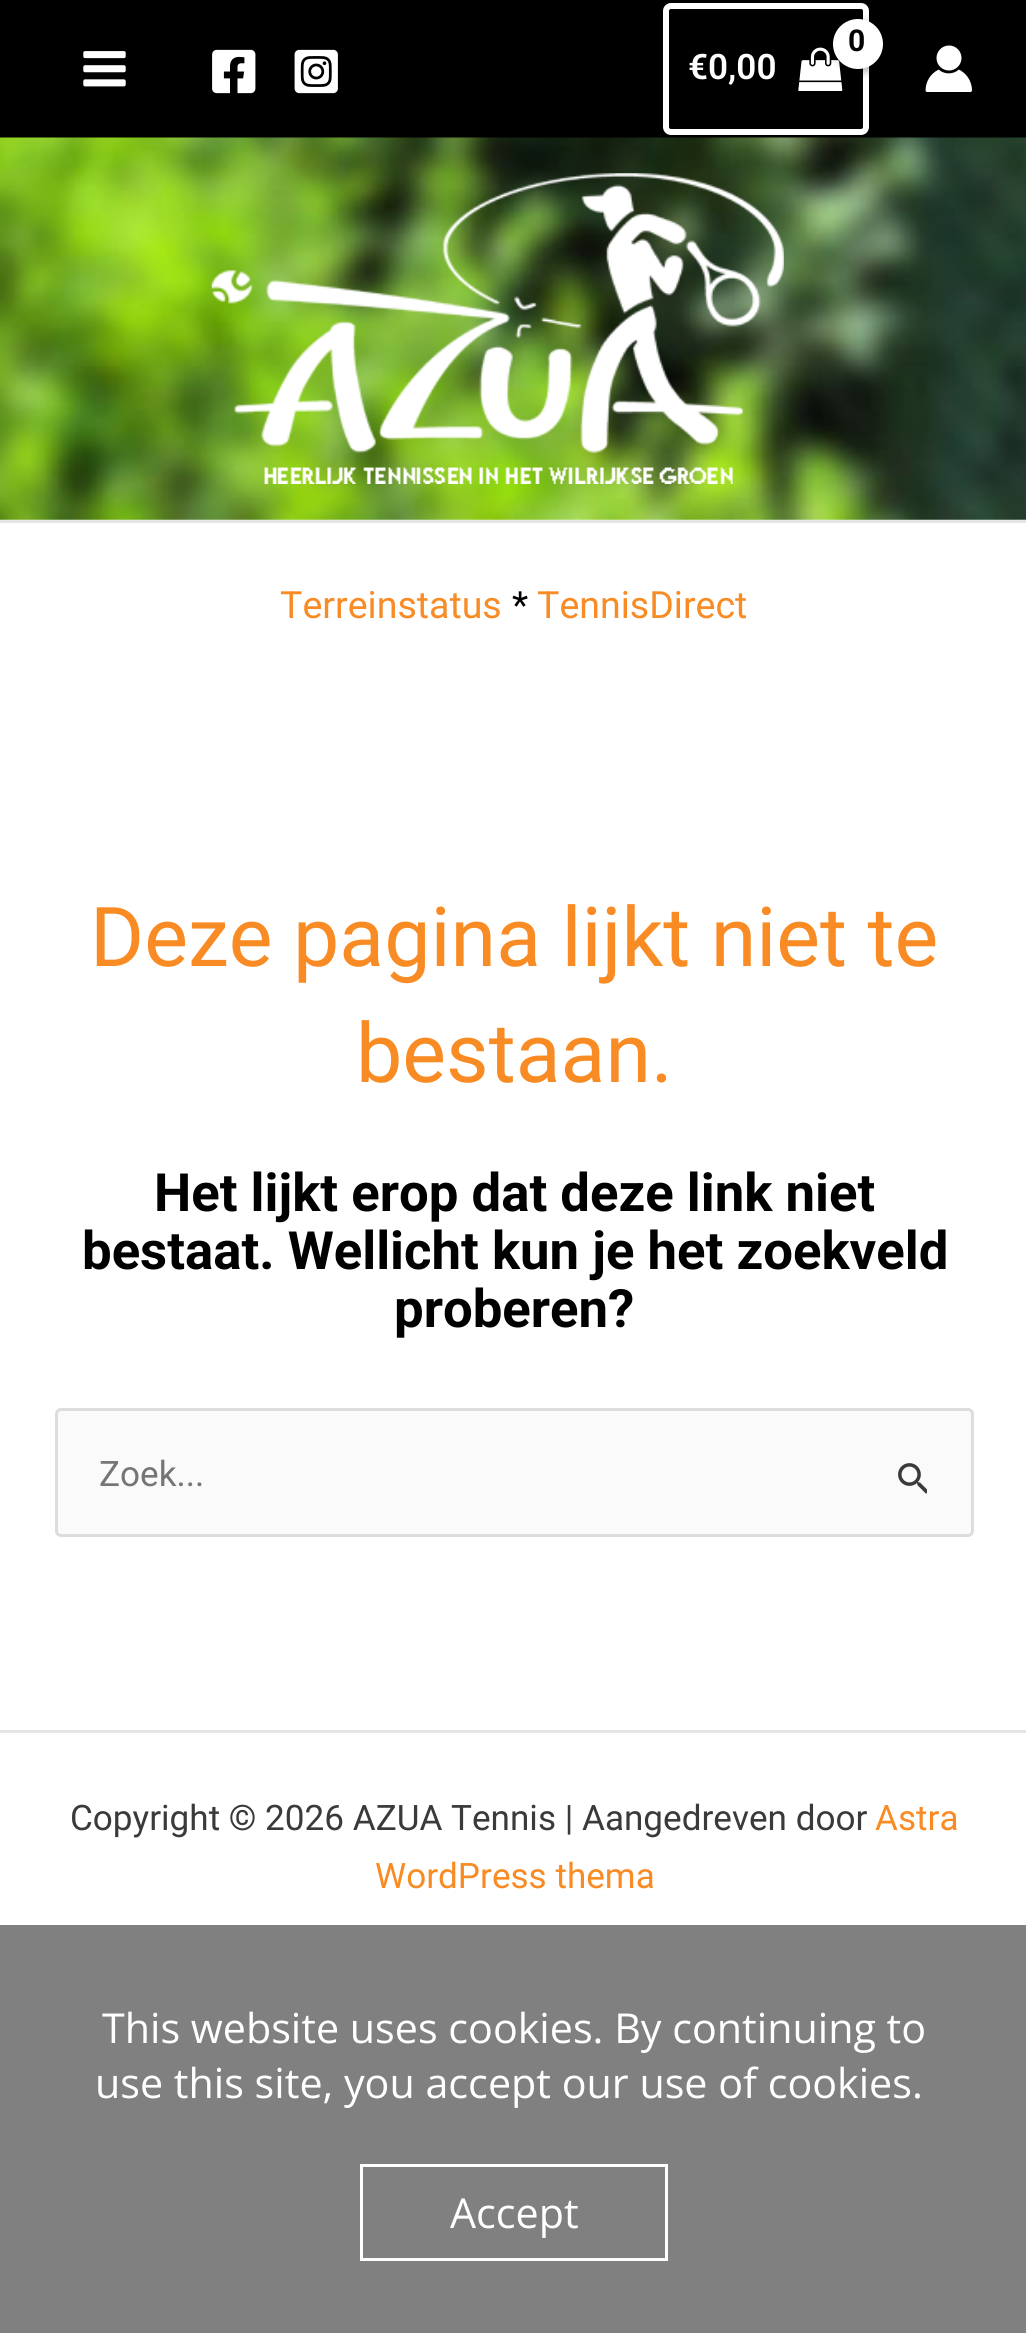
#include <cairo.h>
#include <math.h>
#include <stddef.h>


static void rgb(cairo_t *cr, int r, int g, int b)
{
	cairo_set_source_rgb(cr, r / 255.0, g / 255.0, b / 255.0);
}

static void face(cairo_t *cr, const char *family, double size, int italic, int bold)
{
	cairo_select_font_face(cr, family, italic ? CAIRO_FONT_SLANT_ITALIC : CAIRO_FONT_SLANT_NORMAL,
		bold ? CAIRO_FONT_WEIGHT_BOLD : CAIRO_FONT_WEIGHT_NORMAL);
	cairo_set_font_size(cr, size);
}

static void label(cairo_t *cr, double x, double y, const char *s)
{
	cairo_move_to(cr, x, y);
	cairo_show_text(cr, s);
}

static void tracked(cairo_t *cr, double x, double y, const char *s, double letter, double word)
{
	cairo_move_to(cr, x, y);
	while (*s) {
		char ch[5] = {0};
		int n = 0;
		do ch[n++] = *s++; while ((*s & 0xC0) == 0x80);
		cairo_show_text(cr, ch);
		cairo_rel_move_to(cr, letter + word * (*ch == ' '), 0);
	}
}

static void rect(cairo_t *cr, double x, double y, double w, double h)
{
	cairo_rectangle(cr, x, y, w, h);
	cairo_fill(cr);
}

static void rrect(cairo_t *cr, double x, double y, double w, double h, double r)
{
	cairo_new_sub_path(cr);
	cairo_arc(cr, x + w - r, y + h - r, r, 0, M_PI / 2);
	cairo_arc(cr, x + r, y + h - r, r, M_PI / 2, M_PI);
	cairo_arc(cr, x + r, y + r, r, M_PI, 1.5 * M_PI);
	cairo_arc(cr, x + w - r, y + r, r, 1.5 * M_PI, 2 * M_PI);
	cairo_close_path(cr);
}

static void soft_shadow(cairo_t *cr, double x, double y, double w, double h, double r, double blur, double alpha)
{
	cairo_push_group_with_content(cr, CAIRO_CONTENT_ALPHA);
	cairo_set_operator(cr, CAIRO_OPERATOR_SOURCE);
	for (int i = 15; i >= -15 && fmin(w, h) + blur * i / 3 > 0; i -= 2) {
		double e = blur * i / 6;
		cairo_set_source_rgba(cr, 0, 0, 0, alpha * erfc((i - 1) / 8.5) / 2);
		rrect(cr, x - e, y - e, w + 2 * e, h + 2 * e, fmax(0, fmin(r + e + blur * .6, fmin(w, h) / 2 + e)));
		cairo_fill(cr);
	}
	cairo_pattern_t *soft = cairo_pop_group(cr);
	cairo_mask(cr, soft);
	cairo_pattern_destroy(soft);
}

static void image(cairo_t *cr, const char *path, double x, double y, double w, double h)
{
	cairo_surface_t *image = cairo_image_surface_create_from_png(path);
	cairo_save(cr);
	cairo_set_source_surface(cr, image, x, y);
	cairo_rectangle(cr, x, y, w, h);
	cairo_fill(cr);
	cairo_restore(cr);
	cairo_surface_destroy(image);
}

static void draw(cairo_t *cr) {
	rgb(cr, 255, 255, 255);
	cairo_paint(cr);
	rgb(cr, 0, 0, 0);
	rect(cr, 0, 0, 1026, 138);
	image(cr, "image0.png", 83, 51, 43, 36);
	image(cr, "image1.png", 212, 49, 44, 45);
	image(cr, "image2.png", 294, 49, 44, 45);
	rrect(cr, 666, 6, 200, 126, 5);
	rgb(cr, 255, 255, 255);
	cairo_set_line_width(cr, 6);
	cairo_stroke(cr);
	image(cr, "image3.png", 798, 47, 45, 44);
	rgb(cr, 0, 0, 0);
	soft_shadow(cr, 836, 22, 50, 50, 25, 4, 0.3);
	rgb(cr, 255, 255, 255);
	cairo_arc(cr, 858, 44, 25, 0, 2 * M_PI);
	cairo_fill(cr);
	face(cr, "Roboto", 30, 0, 1);
	rgb(cr, 0, 0, 0);
	tracked(cr, 848, 51, "0", -1, 0);
	face(cr, "Roboto SemiBold", 35.1, 0, 0);
	rgb(cr, 255, 255, 255);
	label(cr, 688, 79, "€0,00");
	image(cr, "image4.png", 925, 45, 47, 47);
	image(cr, "image5.png", 0, 137, 1026, 383);
	rgb(cr, 229, 229, 229);
	rect(cr, 0, 520, 1026, 3);
	image(cr, "image6.png", 211, 173, 573, 311);
	face(cr, "Roboto", 37.5, 0, 0);
	rgb(cr, 249, 139, 36);
	label(cr, 280, 618, "Terreinstatus");
	rgb(cr, 0, 0, 0);
	label(cr, 512, 618, "*");
	rgb(cr, 249, 139, 36);
	label(cr, 537, 618, "TennisDirect");
	face(cr, "Roboto", 82.5, 0, 0);
	label(cr, 90, 966, "Deze pagina lijkt niet te");
	label(cr, 356, 1082, "bestaan.");
	face(cr, "Roboto", 52.7, 0, 1);
	rgb(cr, 0, 0, 0);
	label(cr, 154, 1211, "Het lijkt erop dat deze link niet");
	label(cr, 82, 1269, "bestaat. Wellicht kun je het zoekveld");
	label(cr, 394, 1327, "proberen?");
	rgb(cr, 250, 250, 250);
	rrect(cr, 56.5, 1409.5, 916, 126, 4.5);
	cairo_fill_preserve(cr);
	rgb(cr, 221, 221, 221);
	cairo_set_line_width(cr, 3);
	cairo_stroke(cr);
	face(cr, "Roboto", 35.1, 0, 0);
	rgb(cr, 117, 117, 117);
	label(cr, 99, 1486, "Zoek...");
	image(cr, "image7.png", 898, 1463, 29, 31);
	rgb(cr, 229, 229, 229);
	rect(cr, 0, 1730, 1026, 3);
	rgb(cr, 58, 58, 58);
	label(cr, 70, 1830, "Copyright © 2026 AZUA Tennis | Aangedreven door");
	rgb(cr, 249, 139, 36);
	label(cr, 875, 1830, "Astra");
	label(cr, 375, 1888, "WordPress thema");
	rgb(cr, 128, 128, 128);
	rect(cr, 0, 1925, 1026, 408);
	face(cr, "Open Sans", 41.25, 0, 0);
	rgb(cr, 255, 255, 255);
	label(cr, 102, 2043, "This website uses cookies. By continuing to");
	label(cr, 95, 2098, "use this site, you accept our use of cookies.");
	cairo_rectangle(cr, 361.5, 2165.5, 305, 94);
	cairo_stroke(cr);
	label(cr, 450, 2228, "Accept");
}

int main(void) {
	cairo_surface_t *surface = cairo_image_surface_create(CAIRO_FORMAT_RGB24, 1026, 2333);
	cairo_t *cr = cairo_create(surface);
	cairo_font_options_t *options = cairo_font_options_create();
	cairo_font_options_set_hint_metrics(options, CAIRO_HINT_METRICS_OFF);
	cairo_font_options_set_hint_style(options, CAIRO_HINT_STYLE_NONE);
	cairo_set_font_options(cr, options);
	cairo_set_miter_limit(cr, 4);
	draw(cr);
	cairo_surface_write_to_png(surface, "render.png");
	cairo_font_options_destroy(options);
	cairo_destroy(cr);
	cairo_surface_destroy(surface);
	return 0;
}
